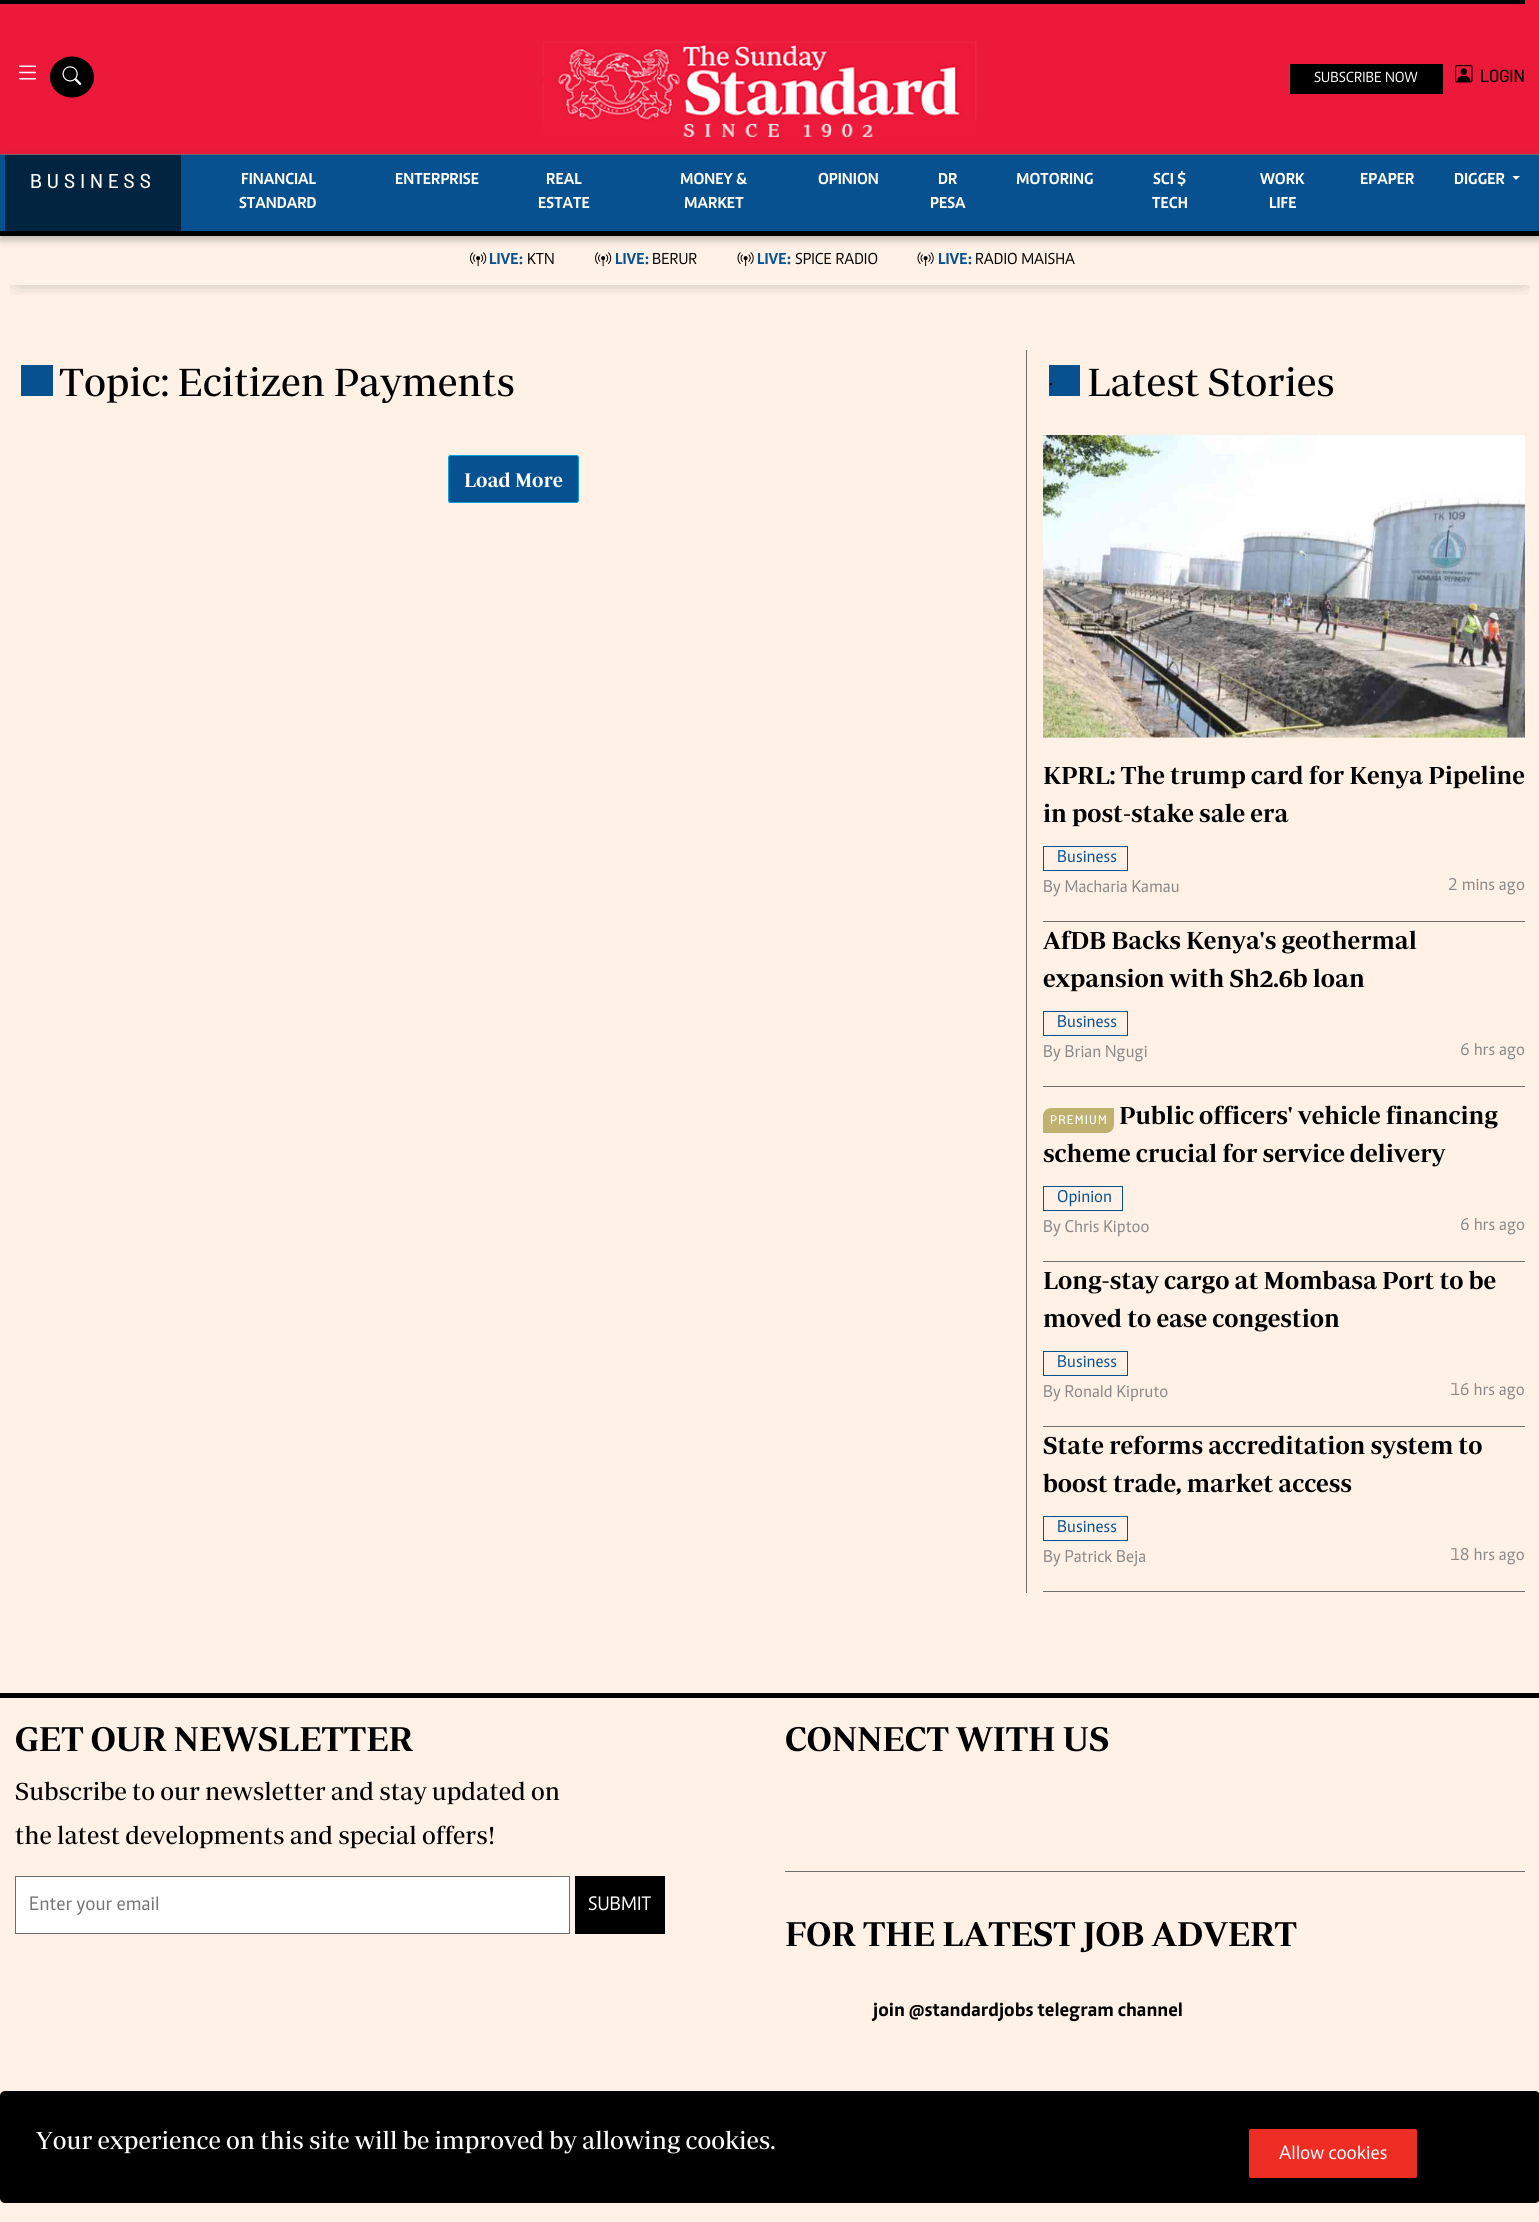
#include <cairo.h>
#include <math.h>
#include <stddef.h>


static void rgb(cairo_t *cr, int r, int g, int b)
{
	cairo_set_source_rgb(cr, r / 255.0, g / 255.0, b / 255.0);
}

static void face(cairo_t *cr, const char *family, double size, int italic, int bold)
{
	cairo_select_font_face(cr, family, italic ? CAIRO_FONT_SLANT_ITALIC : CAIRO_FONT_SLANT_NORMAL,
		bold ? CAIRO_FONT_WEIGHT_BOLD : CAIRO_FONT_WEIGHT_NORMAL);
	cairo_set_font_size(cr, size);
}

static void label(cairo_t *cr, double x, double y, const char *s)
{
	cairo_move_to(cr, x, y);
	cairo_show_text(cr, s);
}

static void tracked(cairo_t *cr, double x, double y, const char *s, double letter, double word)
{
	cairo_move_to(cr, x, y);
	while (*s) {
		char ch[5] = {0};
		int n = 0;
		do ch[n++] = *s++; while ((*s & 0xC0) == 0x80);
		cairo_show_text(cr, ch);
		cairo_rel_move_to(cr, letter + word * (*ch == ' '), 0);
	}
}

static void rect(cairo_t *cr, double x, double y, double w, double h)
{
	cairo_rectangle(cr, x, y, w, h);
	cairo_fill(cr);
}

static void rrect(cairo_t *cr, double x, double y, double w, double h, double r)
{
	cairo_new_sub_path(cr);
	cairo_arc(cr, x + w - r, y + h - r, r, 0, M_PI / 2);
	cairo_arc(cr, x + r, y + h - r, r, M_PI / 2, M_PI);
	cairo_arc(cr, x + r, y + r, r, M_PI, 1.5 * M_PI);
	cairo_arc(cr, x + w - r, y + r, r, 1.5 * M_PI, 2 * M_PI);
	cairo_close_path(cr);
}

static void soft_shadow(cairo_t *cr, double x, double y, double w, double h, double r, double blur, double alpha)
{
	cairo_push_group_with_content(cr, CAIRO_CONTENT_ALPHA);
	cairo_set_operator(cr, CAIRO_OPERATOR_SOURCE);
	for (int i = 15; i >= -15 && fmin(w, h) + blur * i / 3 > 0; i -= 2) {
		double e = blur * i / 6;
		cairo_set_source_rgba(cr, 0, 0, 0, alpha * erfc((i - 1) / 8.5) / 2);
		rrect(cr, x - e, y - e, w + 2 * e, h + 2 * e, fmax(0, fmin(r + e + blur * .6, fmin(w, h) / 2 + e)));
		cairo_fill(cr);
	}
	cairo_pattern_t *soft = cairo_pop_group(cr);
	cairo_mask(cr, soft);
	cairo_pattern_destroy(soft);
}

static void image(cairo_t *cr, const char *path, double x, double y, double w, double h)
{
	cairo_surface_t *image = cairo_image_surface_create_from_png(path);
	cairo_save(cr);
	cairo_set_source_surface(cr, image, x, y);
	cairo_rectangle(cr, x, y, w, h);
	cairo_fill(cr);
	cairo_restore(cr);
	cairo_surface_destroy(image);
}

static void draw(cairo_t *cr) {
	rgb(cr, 255, 241, 229);
	cairo_paint(cr);
	rgb(cr, 236, 25, 58);
	rect(cr, 0, 0, 1539, 154);
	image(cr, "image0.png", 19, 65, 17, 15);
	rgb(cr, 0, 0, 0);
	cairo_new_path(cr);
	cairo_move_to(cr, 72, 56.5);
	cairo_curve_to(cr, 84, 56.5, 94, 65.5, 94, 77);
	cairo_curve_to(cr, 94, 88.5, 84, 97.5, 72, 97.5);
	cairo_curve_to(cr, 60, 97.5, 50, 88.5, 50, 77);
	cairo_curve_to(cr, 50, 65.5, 60, 56.5, 72, 56.5);
	cairo_close_path(cr);
	cairo_fill(cr);
	image(cr, "image1.png", 62, 66, 20, 19);
	image(cr, "image2.png", 542, 41, 435, 96);
	rect(cr, 1290, 64, 153, 30);
	face(cr, "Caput", 15, 0, 0);
	rgb(cr, 255, 255, 255);
	label(cr, 1314, 82, "SUBSCRIBE NOW");
	image(cr, "image3.png", 1455, 65, 18, 18);
	face(cr, "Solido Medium", 17.5, 0, 0);
	rgb(cr, 0, 0, 0);
	label(cr, 1480, 82, "LOGIN");
	rgb(cr, 7, 81, 144);
	rect(cr, 0, 155, 1539, 76);
	cairo_save(cr);
	cairo_set_fill_rule(cr, CAIRO_FILL_RULE_EVEN_ODD);
	cairo_new_path(cr);
	cairo_move_to(cr, 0, 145);
	cairo_line_to(cr, 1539, 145);
	cairo_line_to(cr, 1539, 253);
	cairo_line_to(cr, 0, 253);
	cairo_close_path(cr);
	cairo_move_to(cr, 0, 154);
	cairo_line_to(cr, 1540, 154);
	cairo_line_to(cr, 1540, 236);
	cairo_line_to(cr, 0, 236);
	cairo_close_path(cr);
	cairo_clip(cr);
	rgb(cr, 32, 33, 36);
	soft_shadow(cr, 0, 158, 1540, 82, 0, 4, 0.28);
	cairo_restore(cr);
	rgb(cr, 110, 109, 109);
	rect(cr, 0, 154, 1539, 1);
	rgb(cr, 0, 0, 0);
	rect(cr, 0, 231, 1539, 5);
	rect(cr, 0, 0, 1525, 4);
	rgb(cr, 2, 36, 65);
	rect(cr, 5, 155, 176, 76);
	face(cr, "Solido Medium", 20, 0, 0);
	rgb(cr, 255, 255, 255);
	tracked(cr, 30, 188, "BUSINESS", 5, 0);
	face(cr, "Caput", 16.25, 0, 1);
	label(cr, 241, 184, "FINANCIAL");
	label(cr, 239, 208, "STANDARD");
	label(cr, 395, 184, "ENTERPRISE");
	label(cr, 546, 184, "REAL");
	label(cr, 538, 208, "ESTATE");
	label(cr, 680, 184, "MONEY &");
	label(cr, 684, 208, "MARKET");
	label(cr, 818, 184, "OPINION");
	label(cr, 938, 184, "DR");
	label(cr, 930, 208, "PESA");
	label(cr, 1016, 184, "MOTORING");
	label(cr, 1153, 184, "SCI $");
	label(cr, 1152, 208, "TECH");
	label(cr, 1260, 184, "WORK");
	label(cr, 1269, 208, "LIFE");
	label(cr, 1360, 184, "EPAPER");
	label(cr, 1454, 184, "DIGGER");
	cairo_new_path(cr);
	cairo_move_to(cr, 1512.5, 176);
	cairo_line_to(cr, 1520, 176);
	cairo_line_to(cr, 1516, 180);
	cairo_close_path(cr);
	cairo_fill(cr);
	cairo_save(cr);
	cairo_rectangle(cr, 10, 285, 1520, 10);
	cairo_clip(cr);
	rgb(cr, 0, 0, 0);
	soft_shadow(cr, 19, 265, 1502, 11, 0, 11, 0.56);
	cairo_restore(cr);
	image(cr, "image4.png", 470, 252, 17, 15);
	rgb(cr, 7, 81, 144);
	label(cr, 489, 264, "LIVE:");
	face(cr, "Caput", 16.25, 0, 0);
	rgb(cr, 0, 0, 0);
	label(cr, 527, 264, "KTN");
	image(cr, "image4.png", 595, 252, 17, 15);
	face(cr, "Caput", 16.25, 0, 1);
	rgb(cr, 7, 81, 144);
	label(cr, 615, 264, "LIVE:");
	face(cr, "Caput", 16.25, 0, 0);
	rgb(cr, 0, 0, 0);
	label(cr, 652, 264, "BERUR");
	image(cr, "image5.png", 737, 252, 17, 15);
	face(cr, "Caput", 16.25, 0, 1);
	rgb(cr, 7, 81, 144);
	label(cr, 757, 264, "LIVE:");
	face(cr, "Caput", 16.25, 0, 0);
	rgb(cr, 0, 0, 0);
	label(cr, 795, 264, "SPICE RADIO");
	image(cr, "image5.png", 917, 252, 17, 15);
	face(cr, "Caput", 16.25, 0, 1);
	rgb(cr, 7, 81, 144);
	label(cr, 938, 264, "LIVE:");
	face(cr, "Caput", 16.25, 0, 0);
	rgb(cr, 0, 0, 0);
	label(cr, 975, 264, "RADIO MAISHA");
	rgb(cr, 7, 81, 144);
	rect(cr, 21, 365, 32, 31);
	face(cr, "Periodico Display", 40, 0, 0);
	rgb(cr, 0, 0, 0);
	label(cr, 59, 396, "Topic: Ecitizen Payments");
	rgb(cr, 7, 81, 144);
	rrect(cr, 448.5, 455.5, 130, 47, 2);
	cairo_fill_preserve(cr);
	rgb(cr, 6, 163, 218);
	cairo_set_line_width(cr, 1);
	cairo_stroke(cr);
	face(cr, "Periodico Display SemiBold", 20, 0, 0);
	rgb(cr, 255, 255, 255);
	label(cr, 464, 487, "Load More");
	rgb(cr, 110, 109, 109);
	rect(cr, 1026, 350, 1, 1243);
	rgb(cr, 7, 81, 144);
	rect(cr, 1049, 365, 31, 31);
	face(cr, "Caput", 20, 0, 0);
	rgb(cr, 0, 0, 0);
	label(cr, 1049, 385, ".");
	face(cr, "Periodico Display", 40, 0, 0);
	label(cr, 1087, 396, "Latest Stories");
	rgb(cr, 110, 109, 109);
	rect(cr, 1043, 921, 482, 1);
	image(cr, "image6.png", 1043, 435, 482, 303);
	face(cr, "Periodico Display SemiBold", 25, 0, 0);
	rgb(cr, 0, 0, 0);
	label(cr, 1043, 784, "KPRL: The trump card for Kenya Pipeline");
	label(cr, 1043, 822, "in post-stake sale era");
	cairo_rectangle(cr, 1043.5, 846.5, 84, 24);
	rgb(cr, 7, 81, 144);
	cairo_stroke(cr);
	face(cr, "Caput", 17.5, 0, 0);
	label(cr, 1057, 862, "Business");
	rgb(cr, 136, 136, 136);
	label(cr, 1043, 892, "By Macharia Kamau");
	label(cr, 1448, 890, "2 mins ago");
	rgb(cr, 110, 109, 109);
	rect(cr, 1043, 1086, 482, 1);
	face(cr, "Periodico Display SemiBold", 25, 0, 0);
	rgb(cr, 0, 0, 0);
	label(cr, 1043, 949, "AfDB Backs Kenya's geothermal");
	label(cr, 1043, 987, "expansion with Sh2.6b loan");
	cairo_rectangle(cr, 1043.5, 1011.5, 84, 24);
	rgb(cr, 7, 81, 144);
	cairo_stroke(cr);
	face(cr, "Caput", 17.5, 0, 0);
	label(cr, 1057, 1027, "Business");
	rgb(cr, 136, 136, 136);
	label(cr, 1043, 1057, "By Brian Ngugi");
	label(cr, 1460, 1055, "6 hrs ago");
	rgb(cr, 110, 109, 109);
	rect(cr, 1043, 1261, 482, 1);
	rgb(cr, 191, 178, 112);
	cairo_new_path(cr);
	cairo_move_to(cr, 1051, 1108);
	cairo_line_to(cr, 1114, 1108);
	cairo_line_to(cr, 1114, 1125);
	cairo_curve_to(cr, 1114, 1129.5, 1110.5, 1133, 1106, 1133);
	cairo_line_to(cr, 1043, 1133);
	cairo_line_to(cr, 1043, 1116);
	cairo_curve_to(cr, 1043, 1111.5, 1046.5, 1108, 1051, 1108);
	cairo_close_path(cr);
	cairo_fill(cr);
	face(cr, "Solido Medium", 12.5, 0, 0);
	rgb(cr, 255, 255, 255);
	tracked(cr, 1050, 1124, "PREMIUM", 1.25, 0);
	face(cr, "Periodico Display SemiBold", 25, 0, 0);
	rgb(cr, 0, 0, 0);
	label(cr, 1119, 1124, "Public officers' vehicle financing");
	label(cr, 1043, 1162, "scheme crucial for service delivery");
	cairo_rectangle(cr, 1043.5, 1186.5, 79, 24);
	rgb(cr, 7, 81, 144);
	cairo_stroke(cr);
	face(cr, "Caput", 17.5, 0, 0);
	label(cr, 1057, 1202, "Opinion");
	rgb(cr, 136, 136, 136);
	label(cr, 1043, 1232, "By Chris Kiptoo");
	label(cr, 1460, 1230, "6 hrs ago");
	rgb(cr, 110, 109, 109);
	rect(cr, 1043, 1426, 482, 1);
	face(cr, "Periodico Display SemiBold", 25, 0, 0);
	rgb(cr, 0, 0, 0);
	label(cr, 1043, 1289, "Long-stay cargo at Mombasa Port to be");
	label(cr, 1043, 1327, "moved to ease congestion");
	cairo_rectangle(cr, 1043.5, 1351.5, 84, 24);
	rgb(cr, 7, 81, 144);
	cairo_stroke(cr);
	face(cr, "Caput", 17.5, 0, 0);
	label(cr, 1057, 1367, "Business");
	rgb(cr, 136, 136, 136);
	label(cr, 1043, 1397, "By Ronald Kipruto");
	label(cr, 1450, 1395, "16 hrs ago");
	rgb(cr, 110, 109, 109);
	rect(cr, 1043, 1591, 482, 1);
	face(cr, "Periodico Display SemiBold", 25, 0, 0);
	rgb(cr, 0, 0, 0);
	label(cr, 1043, 1454, "State reforms accreditation system to");
	label(cr, 1043, 1492, "boost trade, market access");
	cairo_rectangle(cr, 1043.5, 1516.5, 84, 24);
	rgb(cr, 7, 81, 144);
	cairo_stroke(cr);
	face(cr, "Caput", 17.5, 0, 0);
	label(cr, 1057, 1532, "Business");
	rgb(cr, 136, 136, 136);
	label(cr, 1043, 1562, "By Patrick Beja");
	label(cr, 1450, 1560, "18 hrs ago");
	rgb(cr, 0, 0, 0);
	rect(cr, 0, 1693, 1539, 5);
	face(cr, "Periodico Display SemiBold", 35, 0, 0);
	label(cr, 15, 1751, "GET OUR NEWSLETTER");
	face(cr, "Periodico Display", 25, 0, 0);
	label(cr, 15, 1800, "Subscribe to our newsletter and stay updated on");
	label(cr, 15, 1844, "the latest developments and special offers!");
	rgb(cr, 255, 255, 255);
	cairo_rectangle(cr, 15.5, 1876.5, 554, 57);
	cairo_fill_preserve(cr);
	rgb(cr, 110, 109, 109);
	cairo_stroke(cr);
	face(cr, "Caput", 20, 0, 0);
	rgb(cr, 117, 117, 117);
	label(cr, 29, 1910, "Enter your email");
	rgb(cr, 0, 0, 0);
	rect(cr, 575, 1876, 90, 58);
	rgb(cr, 255, 255, 255);
	label(cr, 588, 1910, "SUBMIT");
	face(cr, "Periodico Display SemiBold", 35, 0, 0);
	rgb(cr, 0, 0, 0);
	label(cr, 785, 1751, "CONNECT WITH US");
	rgb(cr, 110, 109, 109);
	rect(cr, 785, 1871, 740, 1);
	rgb(cr, 0, 0, 0);
	label(cr, 785, 1946, "FOR THE LATEST JOB ADVERT");
	face(cr, "Caput", 20, 0, 1);
	label(cr, 873, 2016, "join @standardjobs telegram channel");
	rrect(cr, 0, 2091, 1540, 112, 5);
	cairo_fill(cr);
	face(cr, "Periodico Display", 25, 0, 0);
	rgb(cr, 255, 255, 255);
	label(cr, 36, 2149, "Your experience on this site will be improved by allowing cookies.");
	rgb(cr, 238, 46, 36);
	rrect(cr, 1247.5, 2127.5, 171, 52, 3.5);
	cairo_fill_preserve(cr);
	rgb(cr, 0, 0, 0);
	cairo_set_line_width(cr, 3);
	cairo_stroke(cr);
	face(cr, "Caput", 20, 0, 0);
	rgb(cr, 255, 255, 255);
	label(cr, 1279, 2159, "Allow cookies");
}

int main(void) {
	cairo_surface_t *surface = cairo_image_surface_create(CAIRO_FORMAT_RGB24, 1539, 2222);
	cairo_t *cr = cairo_create(surface);
	cairo_font_options_t *options = cairo_font_options_create();
	cairo_font_options_set_hint_metrics(options, CAIRO_HINT_METRICS_OFF);
	cairo_font_options_set_hint_style(options, CAIRO_HINT_STYLE_NONE);
	cairo_set_font_options(cr, options);
	cairo_set_miter_limit(cr, 4);
	draw(cr);
	cairo_surface_write_to_png(surface, "render.png");
	cairo_font_options_destroy(options);
	cairo_destroy(cr);
	cairo_surface_destroy(surface);
	return 0;
}
